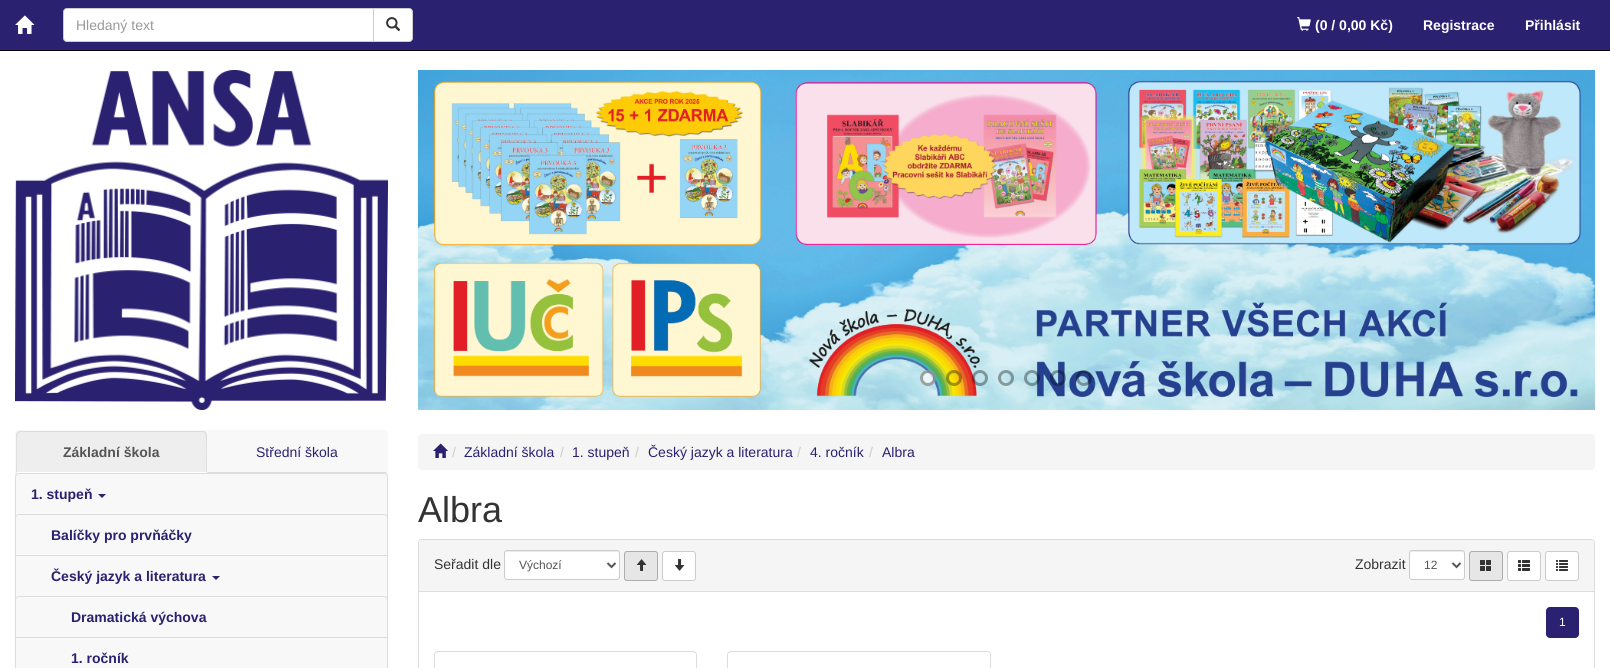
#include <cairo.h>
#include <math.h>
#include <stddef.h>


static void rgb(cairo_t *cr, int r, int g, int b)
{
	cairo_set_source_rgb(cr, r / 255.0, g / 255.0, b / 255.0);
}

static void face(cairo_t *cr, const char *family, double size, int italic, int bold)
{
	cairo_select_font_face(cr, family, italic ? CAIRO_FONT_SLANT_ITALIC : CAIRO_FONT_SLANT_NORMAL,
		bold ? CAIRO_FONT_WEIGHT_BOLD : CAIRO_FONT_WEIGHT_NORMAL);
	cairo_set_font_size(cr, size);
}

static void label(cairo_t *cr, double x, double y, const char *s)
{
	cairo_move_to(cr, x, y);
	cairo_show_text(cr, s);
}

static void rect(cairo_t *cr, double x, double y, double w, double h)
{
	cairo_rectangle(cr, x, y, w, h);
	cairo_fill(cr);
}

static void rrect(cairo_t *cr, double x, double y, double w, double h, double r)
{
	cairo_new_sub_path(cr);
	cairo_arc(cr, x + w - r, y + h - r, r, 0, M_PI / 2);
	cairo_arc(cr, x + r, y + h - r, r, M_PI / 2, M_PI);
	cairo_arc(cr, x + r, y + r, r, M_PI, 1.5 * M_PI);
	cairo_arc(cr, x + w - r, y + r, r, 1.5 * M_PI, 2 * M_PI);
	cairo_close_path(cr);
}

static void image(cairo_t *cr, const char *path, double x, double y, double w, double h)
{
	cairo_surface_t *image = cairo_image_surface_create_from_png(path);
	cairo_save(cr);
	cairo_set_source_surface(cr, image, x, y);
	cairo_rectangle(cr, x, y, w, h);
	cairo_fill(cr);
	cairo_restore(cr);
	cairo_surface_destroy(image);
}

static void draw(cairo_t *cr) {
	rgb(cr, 255, 255, 255);
	cairo_paint(cr);
	rgb(cr, 43, 33, 113);
	rect(cr, 0, 0, 1610, 50);
	rgb(cr, 8, 8, 8);
	rect(cr, 0, 50, 1610, 1);
	image(cr, "image0.png", 15, 15, 20, 19);
	rgb(cr, 255, 255, 255);
	cairo_new_path(cr);
	cairo_move_to(cr, 373.5, 8.5);
	cairo_line_to(cr, 409, 8.5);
	cairo_curve_to(cr, 411, 8.5, 412.5, 10, 412.5, 12);
	cairo_line_to(cr, 412.5, 38);
	cairo_curve_to(cr, 412.5, 40, 411, 41.5, 409, 41.5);
	cairo_line_to(cr, 373.5, 41.5);
	cairo_close_path(cr);
	cairo_fill_preserve(cr);
	rgb(cr, 204, 204, 204);
	cairo_set_line_width(cr, 1);
	cairo_stroke(cr);
	rgb(cr, 255, 255, 255);
	cairo_new_path(cr);
	cairo_move_to(cr, 67, 8.5);
	cairo_line_to(cr, 373.5, 8.5);
	cairo_line_to(cr, 373.5, 41.5);
	cairo_line_to(cr, 67, 41.5);
	cairo_curve_to(cr, 65, 41.5, 63.5, 40, 63.5, 38);
	cairo_line_to(cr, 63.5, 12);
	cairo_curve_to(cr, 63.5, 10, 65, 8.5, 67, 8.5);
	cairo_close_path(cr);
	cairo_fill_preserve(cr);
	rgb(cr, 204, 204, 204);
	cairo_stroke(cr);
	face(cr, "Liberation Sans", 14, 0, 0);
	rgb(cr, 153, 153, 153);
	label(cr, 76, 30, "Hledaný text");
	image(cr, "image1.png", 386, 17, 15, 14);
	image(cr, "image2.png", 1297, 17, 14, 14);
	face(cr, "Liberation Sans", 14, 0, 1);
	rgb(cr, 255, 255, 255);
	label(cr, 1315, 30, "(0 / 0,00 Kč)");
	label(cr, 1423, 30, "Registrace");
	label(cr, 1525, 30, "Přihlásit");
	image(cr, "image3.png", 15, 70, 373, 340);
	rgb(cr, 248, 248, 248);
	rrect(cr, 15, 430, 373, 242, 4);
	cairo_fill(cr);
	rgb(cr, 238, 238, 238);
	cairo_new_path(cr);
	cairo_move_to(cr, 20, 431);
	cairo_line_to(cr, 203, 431);
	cairo_curve_to(cr, 205, 431, 207, 433, 207, 435);
	cairo_line_to(cr, 207, 473);
	cairo_line_to(cr, 16, 473);
	cairo_line_to(cr, 16, 435);
	cairo_curve_to(cr, 16, 433, 18, 431, 20, 431);
	cairo_close_path(cr);
	cairo_fill(cr);
	rgb(cr, 221, 221, 221);
	cairo_new_path(cr);
	cairo_move_to(cr, 20, 431);
	cairo_line_to(cr, 17, 432);
	cairo_line_to(cr, 18, 433);
	cairo_line_to(cr, 20, 432);
	cairo_line_to(cr, 203, 432);
	cairo_line_to(cr, 205, 433);
	cairo_line_to(cr, 206, 432);
	cairo_line_to(cr, 203, 431);
	cairo_close_path(cr);
	cairo_fill(cr);
	cairo_new_path(cr);
	cairo_move_to(cr, 207, 473);
	cairo_line_to(cr, 207, 435);
	cairo_curve_to(cr, 207, 434, 206, 433, 206, 432);
	cairo_line_to(cr, 205, 433);
	cairo_curve_to(cr, 207, 435, 206, 467, 206, 472);
	cairo_close_path(cr);
	cairo_fill(cr);
	rgb(cr, 255, 255, 255);
	cairo_new_path(cr);
	cairo_move_to(cr, 207, 473);
	cairo_line_to(cr, 206, 472);
	cairo_line_to(cr, 17, 472);
	cairo_line_to(cr, 16, 473);
	cairo_close_path(cr);
	cairo_fill(cr);
	rgb(cr, 221, 221, 221);
	cairo_new_path(cr);
	cairo_move_to(cr, 16, 473);
	cairo_line_to(cr, 17, 472);
	cairo_curve_to(cr, 17, 467, 16, 435, 18, 433);
	cairo_line_to(cr, 17, 432);
	cairo_line_to(cr, 16, 435);
	cairo_close_path(cr);
	cairo_fill(cr);
	rgb(cr, 85, 85, 85);
	label(cr, 63, 457, "Základní škola");
	rgb(cr, 221, 221, 221);
	cairo_new_path(cr);
	cairo_move_to(cr, 387, 473);
	cairo_line_to(cr, 386, 472);
	cairo_line_to(cr, 208, 472);
	cairo_line_to(cr, 207, 473);
	cairo_close_path(cr);
	cairo_fill(cr);
	face(cr, "Liberation Sans", 14, 0, 0);
	rgb(cr, 43, 33, 113);
	label(cr, 256, 457, "Střední škola");
	cairo_new_path(cr);
	cairo_move_to(cr, 19, 473.5);
	cairo_line_to(cr, 384, 473.5);
	cairo_curve_to(cr, 386, 473.5, 387.5, 475, 387.5, 477);
	cairo_line_to(cr, 387.5, 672.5);
	cairo_line_to(cr, 15.5, 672.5);
	cairo_line_to(cr, 15.5, 477);
	cairo_curve_to(cr, 15.5, 475, 17, 473.5, 19, 473.5);
	cairo_close_path(cr);
	rgb(cr, 221, 221, 221);
	cairo_stroke(cr);
	face(cr, "Liberation Sans", 14, 0, 1);
	rgb(cr, 43, 33, 113);
	label(cr, 31, 499, "1. stupeň");
	cairo_new_path(cr);
	cairo_move_to(cr, 98, 494);
	cairo_line_to(cr, 106, 494);
	cairo_line_to(cr, 102, 498);
	cairo_close_path(cr);
	cairo_fill(cr);
	rgb(cr, 221, 221, 221);
	cairo_set_fill_rule(cr, CAIRO_FILL_RULE_EVEN_ODD);
	cairo_new_path(cr);
	cairo_move_to(cr, 387, 556);
	cairo_line_to(cr, 16, 556);
	cairo_line_to(cr, 16, 555);
	cairo_line_to(cr, 387, 555);
	cairo_close_path(cr);
	cairo_move_to(cr, 19, 514);
	cairo_curve_to(cr, 18, 514, 17, 515, 16, 515);
	cairo_line_to(cr, 16, 518);
	cairo_curve_to(cr, 16, 516, 17, 515, 19, 515);
	cairo_line_to(cr, 384, 515);
	cairo_curve_to(cr, 386, 515, 387, 516, 387, 518);
	cairo_line_to(cr, 387, 515);
	cairo_curve_to(cr, 386, 515, 385, 514, 384, 514);
	cairo_close_path(cr);
	cairo_fill(cr);
	rgb(cr, 43, 33, 113);
	label(cr, 51, 540, "Balíčky pro prvňáčky");
	label(cr, 51, 581, "Český jazyk a literatura");
	cairo_set_fill_rule(cr, CAIRO_FILL_RULE_WINDING);
	cairo_new_path(cr);
	cairo_move_to(cr, 212, 576);
	cairo_line_to(cr, 220, 576);
	cairo_line_to(cr, 216, 580);
	cairo_close_path(cr);
	cairo_fill(cr);
	rgb(cr, 221, 221, 221);
	cairo_set_fill_rule(cr, CAIRO_FILL_RULE_EVEN_ODD);
	cairo_new_path(cr);
	cairo_move_to(cr, 387, 638);
	cairo_line_to(cr, 16, 638);
	cairo_line_to(cr, 16, 637);
	cairo_line_to(cr, 387, 637);
	cairo_close_path(cr);
	cairo_move_to(cr, 19, 596);
	cairo_curve_to(cr, 18, 596, 17, 597, 16, 597);
	cairo_line_to(cr, 16, 600);
	cairo_curve_to(cr, 16, 598, 17, 597, 19, 597);
	cairo_line_to(cr, 384, 597);
	cairo_curve_to(cr, 386, 597, 387, 598, 387, 600);
	cairo_line_to(cr, 387, 597);
	cairo_curve_to(cr, 386, 597, 385, 596, 384, 596);
	cairo_close_path(cr);
	cairo_fill(cr);
	rgb(cr, 43, 33, 113);
	label(cr, 71, 622, "Dramatická výchova");
	label(cr, 71, 663, "1. ročník");
	image(cr, "image4.png", 418, 70, 1177, 340);
	cairo_set_source_rgba(cr, 1, 1, 1, 0.7);
	cairo_arc(cr, 928, 378, 8, 0, 2 * M_PI);
	cairo_fill(cr);
	cairo_arc(cr, 928, 378, 6.5, 0, 2 * M_PI);
	cairo_set_source_rgba(cr, 0, 0, 0, 0.35);
	cairo_set_line_width(cr, 3);
	cairo_stroke(cr);
	cairo_arc(cr, 954, 378, 6.5, 0, 2 * M_PI);
	cairo_stroke(cr);
	cairo_arc(cr, 980, 378, 6.5, 0, 2 * M_PI);
	cairo_stroke(cr);
	cairo_arc(cr, 1006, 378, 6.5, 0, 2 * M_PI);
	cairo_stroke(cr);
	cairo_arc(cr, 1032, 378, 6.5, 0, 2 * M_PI);
	cairo_stroke(cr);
	cairo_arc(cr, 1058, 378, 6.5, 0, 2 * M_PI);
	cairo_stroke(cr);
	cairo_arc(cr, 1084, 378, 6.5, 0, 2 * M_PI);
	cairo_stroke(cr);
	rgb(cr, 245, 245, 245);
	rrect(cr, 418, 434, 1177, 36, 4);
	cairo_fill(cr);
	image(cr, "image5.png", 433, 443, 15, 15);
	face(cr, "Liberation Sans", 14, 0, 0);
	rgb(cr, 204, 204, 204);
	label(cr, 452, 457, "/");
	rgb(cr, 43, 33, 113);
	label(cr, 464, 457, "Základní škola");
	rgb(cr, 204, 204, 204);
	label(cr, 560, 457, "/");
	rgb(cr, 43, 33, 113);
	label(cr, 572, 457, "1. stupeň");
	rgb(cr, 204, 204, 204);
	label(cr, 635, 457, "/");
	rgb(cr, 43, 33, 113);
	label(cr, 648, 457, "Český jazyk a literatura");
	rgb(cr, 204, 204, 204);
	label(cr, 797, 457, "/");
	rgb(cr, 43, 33, 113);
	label(cr, 810, 457, "4. ročník");
	rgb(cr, 204, 204, 204);
	label(cr, 869, 457, "/");
	rgb(cr, 43, 33, 113);
	label(cr, 882, 457, "Albra");
	face(cr, "Liberation Sans", 36, 0, 0);
	rgb(cr, 51, 51, 51);
	label(cr, 418, 522, "Albra");
	rrect(cr, 418.5, 539.5, 1176, 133, 3.5);
	rgb(cr, 221, 221, 221);
	cairo_set_line_width(cr, 1);
	cairo_stroke(cr);
	rgb(cr, 245, 245, 245);
	cairo_new_path(cr);
	cairo_move_to(cr, 422, 540);
	cairo_line_to(cr, 1591, 540);
	cairo_curve_to(cr, 1592.5, 540, 1594, 541.5, 1594, 543);
	cairo_line_to(cr, 1594, 592);
	cairo_line_to(cr, 419, 592);
	cairo_line_to(cr, 419, 543);
	cairo_curve_to(cr, 419, 541.5, 420.5, 540, 422, 540);
	cairo_close_path(cr);
	cairo_fill(cr);
	rgb(cr, 221, 221, 221);
	rect(cr, 419, 591, 1175, 1);
	face(cr, "Liberation Sans", 14, 0, 0);
	rgb(cr, 51, 51, 51);
	label(cr, 434, 569, "Seřadit dle");
	rgb(cr, 255, 255, 255);
	rrect(cr, 504, 550, 116, 30, 3);
	cairo_fill(cr);
	rgb(cr, 236, 236, 236);
	cairo_set_fill_rule(cr, CAIRO_FILL_RULE_WINDING);
	cairo_new_path(cr);
	cairo_move_to(cr, 507, 552);
	cairo_line_to(cr, 617, 552);
	cairo_curve_to(cr, 618, 552, 619, 553, 619, 554);
	cairo_curve_to(cr, 619, 553, 619, 551, 617, 551);
	cairo_line_to(cr, 507, 551);
	cairo_curve_to(cr, 505, 551, 505, 553, 505, 554);
	cairo_curve_to(cr, 505, 553, 506, 552, 507, 552);
	cairo_close_path(cr);
	cairo_fill(cr);
	rrect(cr, 504.5, 550.5, 115, 29, 2.5);
	rgb(cr, 204, 204, 204);
	cairo_stroke(cr);
	cairo_new_path(cr);
	cairo_move_to(cr, 607.5, 563);
	cairo_line_to(cr, 611.5, 567);
	cairo_line_to(cr, 615.5, 563);
	rgb(cr, 85, 85, 85);
	cairo_set_line_width(cr, 2);
	cairo_stroke(cr);
	face(cr, "Liberation Sans", 12, 0, 0);
	label(cr, 519, 569, "Výchozí");
	rgb(cr, 230, 230, 230);
	rrect(cr, 624.5, 551.5, 33, 29, 2.5);
	cairo_fill_preserve(cr);
	rgb(cr, 173, 173, 173);
	cairo_set_line_width(cr, 1);
	cairo_stroke(cr);
	image(cr, "image6.png", 636, 559, 11, 12);
	rgb(cr, 255, 255, 255);
	rrect(cr, 662.5, 551.5, 33, 29, 2.5);
	cairo_fill_preserve(cr);
	rgb(cr, 204, 204, 204);
	cairo_stroke(cr);
	image(cr, "image7.png", 674, 559, 11, 12);
	face(cr, "Liberation Sans", 14, 0, 0);
	rgb(cr, 51, 51, 51);
	label(cr, 1355, 569, "Zobrazit");
	rgb(cr, 255, 255, 255);
	rrect(cr, 1409, 550, 56, 30, 3);
	cairo_fill(cr);
	rgb(cr, 236, 236, 236);
	cairo_new_path(cr);
	cairo_move_to(cr, 1412, 552);
	cairo_line_to(cr, 1462, 552);
	cairo_curve_to(cr, 1463, 552, 1464, 553, 1464, 554);
	cairo_curve_to(cr, 1464, 549, 1458, 551, 1454, 551);
	cairo_line_to(cr, 1420, 551);
	cairo_curve_to(cr, 1416, 551, 1410, 549, 1410, 554);
	cairo_curve_to(cr, 1410, 553, 1411, 552, 1412, 552);
	cairo_close_path(cr);
	cairo_fill(cr);
	rrect(cr, 1409.5, 550.5, 55, 29, 2.5);
	rgb(cr, 204, 204, 204);
	cairo_stroke(cr);
	cairo_new_path(cr);
	cairo_move_to(cr, 1452.5, 563);
	cairo_line_to(cr, 1456.5, 567);
	cairo_line_to(cr, 1460.5, 563);
	rgb(cr, 85, 85, 85);
	cairo_set_line_width(cr, 2);
	cairo_stroke(cr);
	face(cr, "Liberation Sans", 12, 0, 0);
	label(cr, 1424, 569, "12");
	rgb(cr, 230, 230, 230);
	rrect(cr, 1469.5, 551.5, 33, 29, 2.5);
	cairo_fill_preserve(cr);
	rgb(cr, 173, 173, 173);
	cairo_set_line_width(cr, 1);
	cairo_stroke(cr);
	image(cr, "image8.png", 1480, 560, 11, 11);
	rgb(cr, 255, 255, 255);
	rrect(cr, 1507.5, 551.5, 33, 29, 2.5);
	cairo_fill_preserve(cr);
	rgb(cr, 204, 204, 204);
	cairo_stroke(cr);
	image(cr, "image9.png", 1518, 560, 12, 11);
	rgb(cr, 255, 255, 255);
	rrect(cr, 1545.5, 551.5, 33, 29, 2.5);
	cairo_fill_preserve(cr);
	rgb(cr, 204, 204, 204);
	cairo_stroke(cr);
	image(cr, "image10.png", 1556, 560, 12, 11);
	rgb(cr, 43, 33, 113);
	rrect(cr, 1546.5, 607.5, 32, 30, 3.5);
	cairo_fill_preserve(cr);
	cairo_stroke(cr);
	rgb(cr, 255, 255, 255);
	label(cr, 1559, 626, "1");
	rrect(cr, 434.5, 651.5, 262, 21, 3.5);
	rgb(cr, 221, 221, 221);
	cairo_stroke(cr);
	rrect(cr, 727.5, 651.5, 263, 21, 3.5);
	cairo_stroke(cr);
}

int main(void) {
	cairo_surface_t *surface = cairo_image_surface_create(CAIRO_FORMAT_RGB24, 1610, 668);
	cairo_t *cr = cairo_create(surface);
	cairo_font_options_t *options = cairo_font_options_create();
	cairo_font_options_set_hint_metrics(options, CAIRO_HINT_METRICS_OFF);
	cairo_font_options_set_hint_style(options, CAIRO_HINT_STYLE_NONE);
	cairo_set_font_options(cr, options);
	cairo_set_miter_limit(cr, 4);
	draw(cr);
	cairo_surface_write_to_png(surface, "render.png");
	cairo_font_options_destroy(options);
	cairo_destroy(cr);
	cairo_surface_destroy(surface);
	return 0;
}
